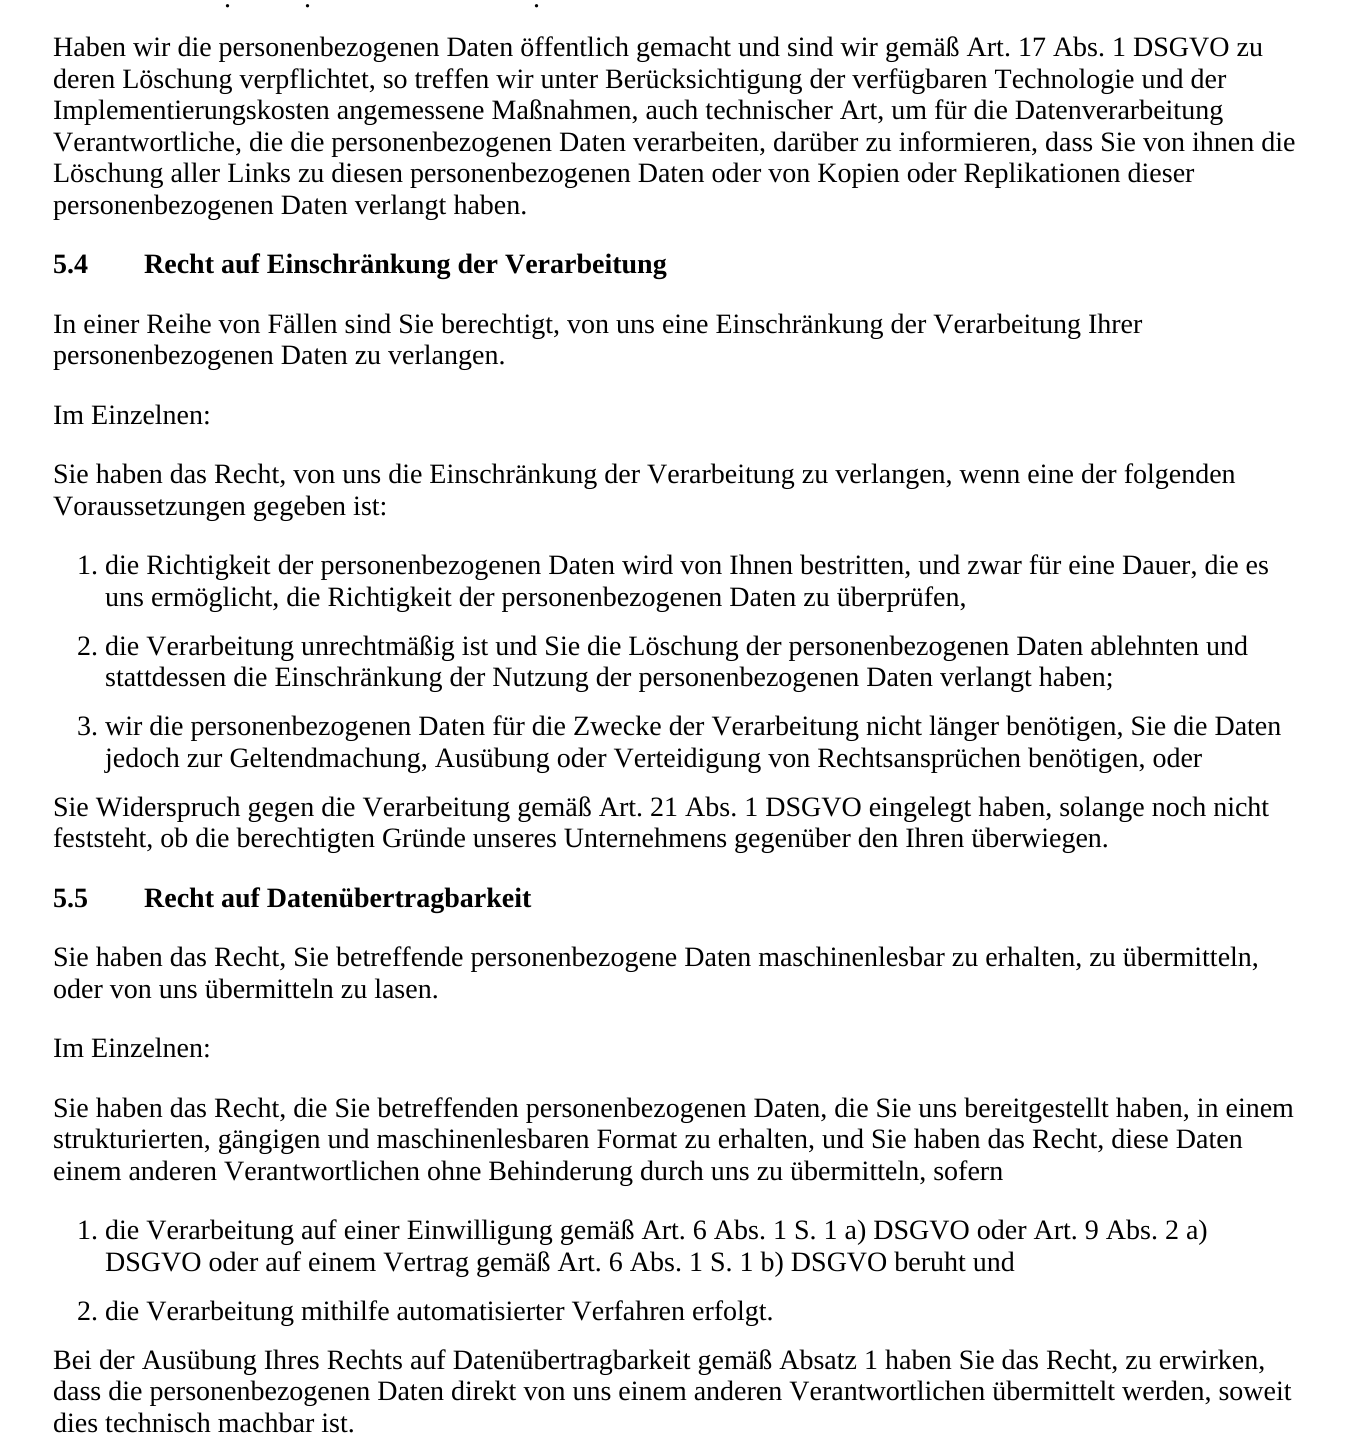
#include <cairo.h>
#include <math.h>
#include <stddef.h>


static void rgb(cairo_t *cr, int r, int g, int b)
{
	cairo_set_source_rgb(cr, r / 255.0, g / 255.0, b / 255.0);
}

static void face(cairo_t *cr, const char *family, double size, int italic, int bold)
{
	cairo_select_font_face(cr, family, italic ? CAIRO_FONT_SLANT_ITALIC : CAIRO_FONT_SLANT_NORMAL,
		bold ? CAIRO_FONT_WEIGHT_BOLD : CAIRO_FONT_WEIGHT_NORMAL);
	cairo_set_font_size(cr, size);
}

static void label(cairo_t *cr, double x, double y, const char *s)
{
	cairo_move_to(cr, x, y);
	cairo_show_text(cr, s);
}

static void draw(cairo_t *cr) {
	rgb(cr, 255, 255, 255);
	cairo_paint(cr);
	face(cr, "Liberation Serif", 28, 0, 0);
	rgb(cr, 0, 0, 0);
	label(cr, 224, 7, ".");
	label(cr, 304, 7, ".");
	label(cr, 533, 7, ".");
	label(cr, 53, 56, "Haben wir die personenbezogenen Daten öffentlich gemacht und sind wir gemäß Art. 17 Abs. 1 DSGVO zu");
	label(cr, 53, 88, "deren Löschung verpflichtet, so treffen wir unter Berücksichtigung der verfügbaren Technologie und der");
	label(cr, 53, 119, "Implementierungskosten angemessene Maßnahmen, auch technischer Art, um für die Datenverarbeitung");
	label(cr, 53, 151, "Verantwortliche, die die personenbezogenen Daten verarbeiten, darüber zu informieren, dass Sie von ihnen die");
	label(cr, 53, 182, "Löschung aller Links zu diesen personenbezogenen Daten oder von Kopien oder Replikationen dieser");
	label(cr, 53, 214, "personenbezogenen Daten verlangt haben.");
	face(cr, "Liberation Serif", 28, 0, 1);
	label(cr, 53, 273, "5.4        Recht auf Einschränkung der Verarbeitung");
	face(cr, "Liberation Serif", 28, 0, 0);
	label(cr, 53, 333, "In einer Reihe von Fällen sind Sie berechtigt, von uns eine Einschränkung der Verarbeitung Ihrer");
	label(cr, 53, 364, "personenbezogenen Daten zu verlangen.");
	label(cr, 53, 424, "Im Einzelnen:");
	label(cr, 53, 483, "Sie haben das Recht, von uns die Einschränkung der Verarbeitung zu verlangen, wenn eine der folgenden");
	label(cr, 53, 515, "Voraussetzungen gegeben ist:");
	label(cr, 77, 574, "1. die Richtigkeit der personenbezogenen Daten wird von Ihnen bestritten, und zwar für eine Dauer, die es");
	label(cr, 105, 606, "uns ermöglicht, die Richtigkeit der personenbezogenen Daten zu überprüfen,");
	label(cr, 77, 655, "2. die Verarbeitung unrechtmäßig ist und Sie die Löschung der personenbezogenen Daten ablehnten und");
	label(cr, 105, 686, "stattdessen die Einschränkung der Nutzung der personenbezogenen Daten verlangt haben;");
	label(cr, 77, 735, "3. wir die personenbezogenen Daten für die Zwecke der Verarbeitung nicht länger benötigen, Sie die Daten");
	label(cr, 105, 767, "jedoch zur Geltendmachung, Ausübung oder Verteidigung von Rechtsansprüchen benötigen, oder");
	label(cr, 53, 816, "Sie Widerspruch gegen die Verarbeitung gemäß Art. 21 Abs. 1 DSGVO eingelegt haben, solange noch nicht");
	label(cr, 53, 847, "feststeht, ob die berechtigten Gründe unseres Unternehmens gegenüber den Ihren überwiegen.");
	face(cr, "Liberation Serif", 28, 0, 1);
	label(cr, 53, 907, "5.5        Recht auf Datenübertragbarkeit");
	face(cr, "Liberation Serif", 28, 0, 0);
	label(cr, 53, 966, "Sie haben das Recht, Sie betreffende personenbezogene Daten maschinenlesbar zu erhalten, zu übermitteln,");
	label(cr, 53, 998, "oder von uns übermitteln zu lasen.");
	label(cr, 53, 1057, "Im Einzelnen:");
	label(cr, 53, 1117, "Sie haben das Recht, die Sie betreffenden personenbezogenen Daten, die Sie uns bereitgestellt haben, in einem");
	label(cr, 53, 1148, "strukturierten, gängigen und maschinenlesbaren Format zu erhalten, und Sie haben das Recht, diese Daten");
	label(cr, 53, 1180, "einem anderen Verantwortlichen ohne Behinderung durch uns zu übermitteln, sofern");
	label(cr, 77, 1239, "1. die Verarbeitung auf einer Einwilligung gemäß Art. 6 Abs. 1 S. 1 a) DSGVO oder Art. 9 Abs. 2 a)");
	label(cr, 105, 1271, "DSGVO oder auf einem Vertrag gemäß Art. 6 Abs. 1 S. 1 b) DSGVO beruht und");
	label(cr, 77, 1320, "2. die Verarbeitung mithilfe automatisierter Verfahren erfolgt.");
	label(cr, 53, 1369, "Bei der Ausübung Ihres Rechts auf Datenübertragbarkeit gemäß Absatz 1 haben Sie das Recht, zu erwirken,");
	label(cr, 53, 1400, "dass die personenbezogenen Daten direkt von uns einem anderen Verantwortlichen übermittelt werden, soweit");
	label(cr, 53, 1432, "dies technisch machbar ist.");
}

int main(void) {
	cairo_surface_t *surface = cairo_image_surface_create(CAIRO_FORMAT_RGB24, 1362, 1433);
	cairo_t *cr = cairo_create(surface);
	cairo_font_options_t *options = cairo_font_options_create();
	cairo_font_options_set_hint_metrics(options, CAIRO_HINT_METRICS_OFF);
	cairo_font_options_set_hint_style(options, CAIRO_HINT_STYLE_NONE);
	cairo_set_font_options(cr, options);
	cairo_set_miter_limit(cr, 4);
	draw(cr);
	cairo_surface_write_to_png(surface, "render.png");
	cairo_font_options_destroy(options);
	cairo_destroy(cr);
	cairo_surface_destroy(surface);
	return 0;
}
